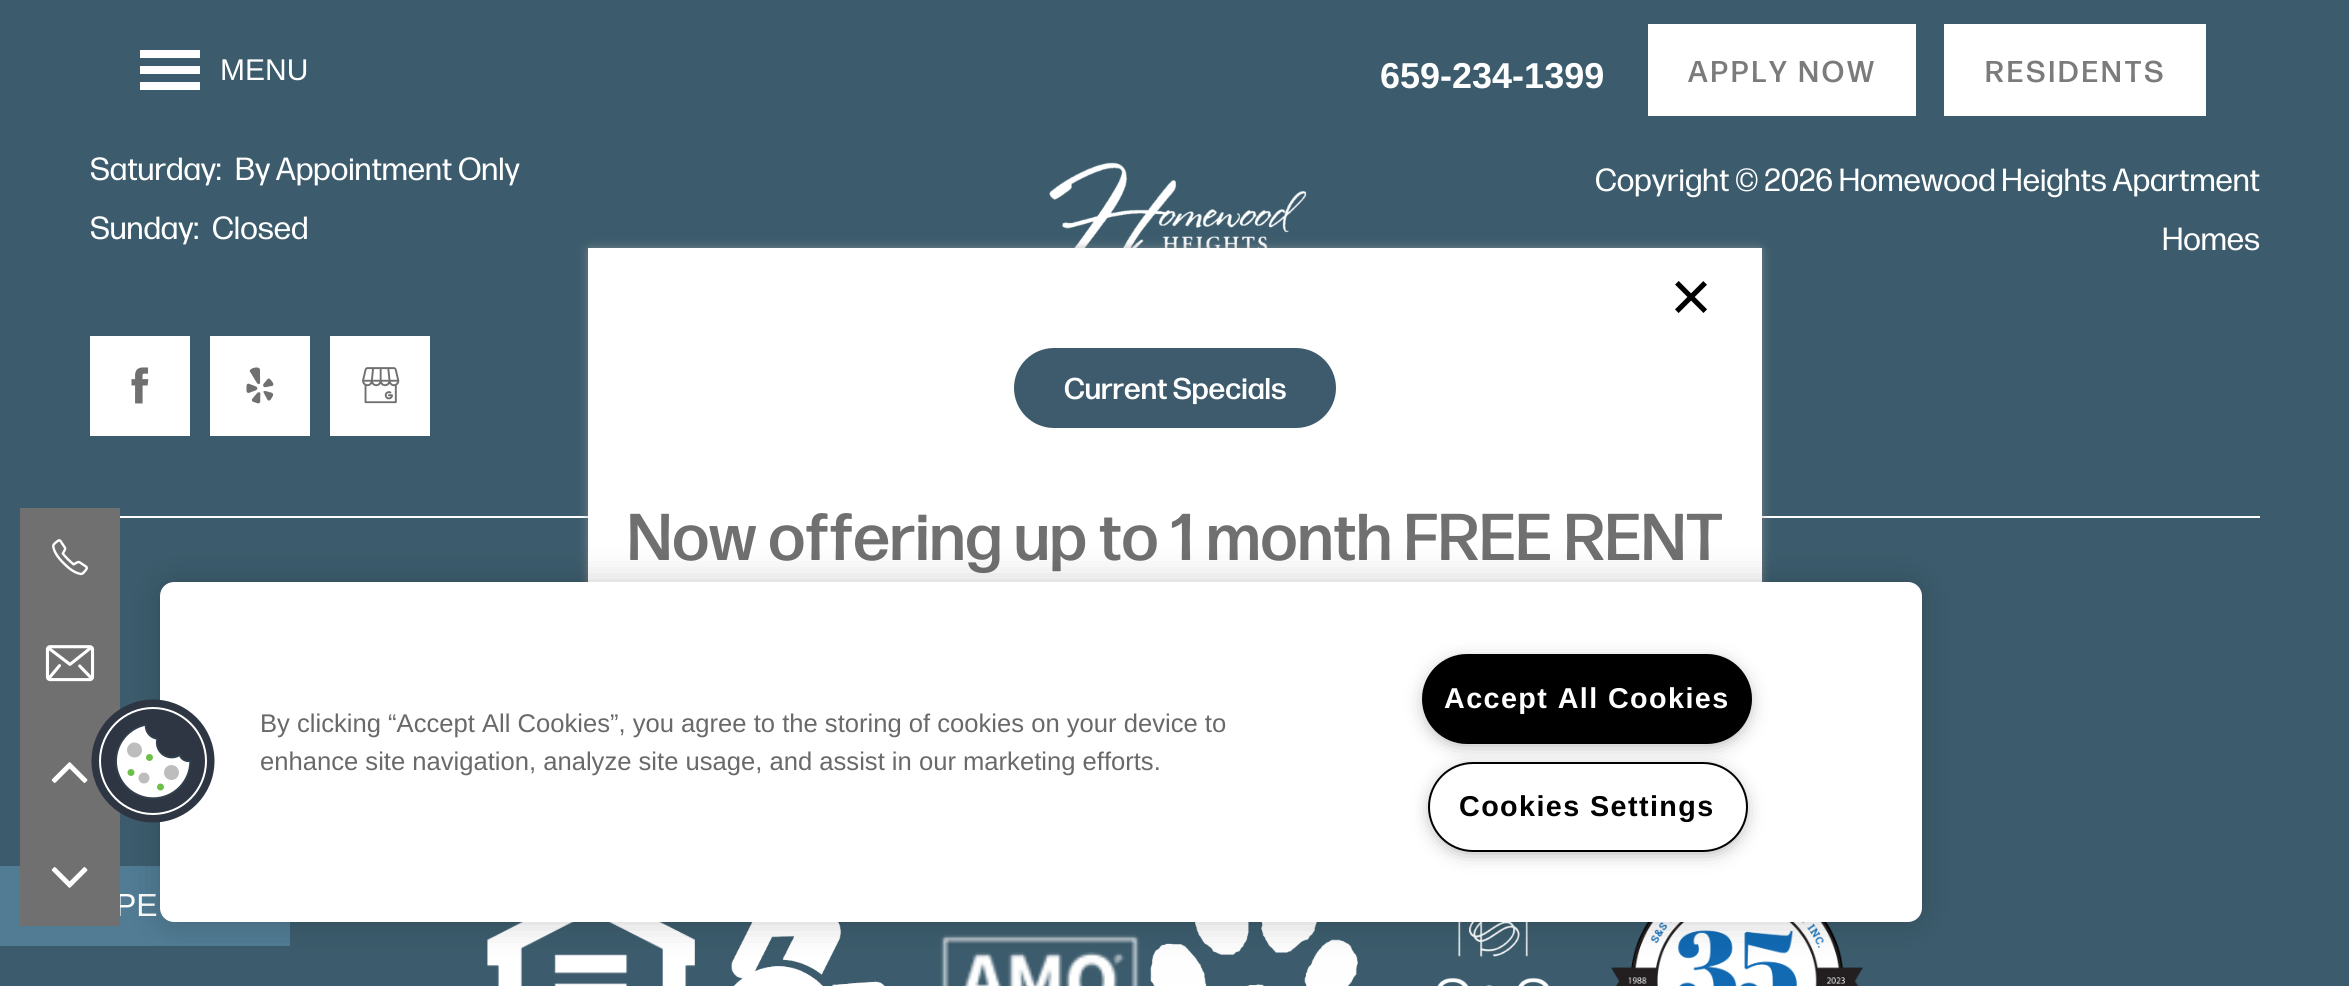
#include <cairo.h>
#include <math.h>
#include <stddef.h>


static void rgb(cairo_t *cr, int r, int g, int b)
{
	cairo_set_source_rgb(cr, r / 255.0, g / 255.0, b / 255.0);
}

static void face(cairo_t *cr, const char *family, double size, int italic, int bold)
{
	cairo_select_font_face(cr, family, italic ? CAIRO_FONT_SLANT_ITALIC : CAIRO_FONT_SLANT_NORMAL,
		bold ? CAIRO_FONT_WEIGHT_BOLD : CAIRO_FONT_WEIGHT_NORMAL);
	cairo_set_font_size(cr, size);
}

static void label(cairo_t *cr, double x, double y, const char *s)
{
	cairo_move_to(cr, x, y);
	cairo_show_text(cr, s);
}

static void tracked(cairo_t *cr, double x, double y, const char *s, double letter, double word)
{
	cairo_move_to(cr, x, y);
	while (*s) {
		char ch[5] = {0};
		int n = 0;
		do ch[n++] = *s++; while ((*s & 0xC0) == 0x80);
		cairo_show_text(cr, ch);
		cairo_rel_move_to(cr, letter + word * (*ch == ' '), 0);
	}
}

static void rect(cairo_t *cr, double x, double y, double w, double h)
{
	cairo_rectangle(cr, x, y, w, h);
	cairo_fill(cr);
}

static void rrect(cairo_t *cr, double x, double y, double w, double h, double r)
{
	cairo_new_sub_path(cr);
	cairo_arc(cr, x + w - r, y + h - r, r, 0, M_PI / 2);
	cairo_arc(cr, x + r, y + h - r, r, M_PI / 2, M_PI);
	cairo_arc(cr, x + r, y + r, r, M_PI, 1.5 * M_PI);
	cairo_arc(cr, x + w - r, y + r, r, 1.5 * M_PI, 2 * M_PI);
	cairo_close_path(cr);
}

static void soft_shadow(cairo_t *cr, double x, double y, double w, double h, double r, double blur, double alpha)
{
	cairo_push_group_with_content(cr, CAIRO_CONTENT_ALPHA);
	cairo_set_operator(cr, CAIRO_OPERATOR_SOURCE);
	for (int i = 15; i >= -15 && fmin(w, h) + blur * i / 3 > 0; i -= 2) {
		double e = blur * i / 6;
		cairo_set_source_rgba(cr, 0, 0, 0, alpha * erfc((i - 1) / 8.5) / 2);
		rrect(cr, x - e, y - e, w + 2 * e, h + 2 * e, fmax(0, fmin(r + e + blur * .6, fmin(w, h) / 2 + e)));
		cairo_fill(cr);
	}
	cairo_pattern_t *soft = cairo_pop_group(cr);
	cairo_mask(cr, soft);
	cairo_pattern_destroy(soft);
}

static void image(cairo_t *cr, const char *path, double x, double y, double w, double h)
{
	cairo_surface_t *image = cairo_image_surface_create_from_png(path);
	cairo_save(cr);
	cairo_set_source_surface(cr, image, x, y);
	cairo_rectangle(cr, x, y, w, h);
	cairo_fill(cr);
	cairo_restore(cr);
	cairo_surface_destroy(image);
}

static void draw(cairo_t *cr) {
	rgb(cr, 60, 92, 109);
	cairo_paint(cr);
	rgb(cr, 255, 255, 255);
	rect(cr, 140, 50, 60, 8);
	rect(cr, 140, 66, 60, 8);
	rect(cr, 140, 82, 60, 8);
	face(cr, "Liberation Sans", 30, 0, 0);
	label(cr, 220, 80, "MENU");
	face(cr, "Liberation Sans", 36, 0, 1);
	label(cr, 1380, 88, "659-234-1399");
	rect(cr, 1648, 24, 268, 92);
	face(cr, "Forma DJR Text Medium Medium", 30, 0, 0);
	rgb(cr, 123, 123, 123);
	tracked(cr, 1688, 82, "APPLY NOW", 3, 0);
	rgb(cr, 255, 255, 255);
	rect(cr, 1944, 24, 262, 92);
	rgb(cr, 123, 123, 123);
	tracked(cr, 1985, 82, "RESIDENTS", 3, 0);
	face(cr, "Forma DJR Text", 32, 0, 0);
	rgb(cr, 255, 255, 255);
	label(cr, 90, 180, "Saturday:");
	label(cr, 235, 180, "By Appointment Only");
	label(cr, 90, 239, "Sunday:");
	label(cr, 212, 239, "Closed");
	rect(cr, 90, 336, 100, 100);
	image(cr, "image0.png", 131, 367, 18, 37);
	rect(cr, 210, 336, 100, 100);
	image(cr, "image1.png", 246, 367, 28, 37);
	rect(cr, 330, 336, 100, 100);
	image(cr, "image2.png", 362, 367, 38, 37);
	image(cr, "image3.png", 1049, 162, 258, 86);
	label(cr, 1595, 191, "Copyright © 2026 Homewood Heights Apartment");
	label(cr, 2162, 250, "Homes");
	rect(cr, 120, 516, 2140, 2);
	image(cr, "image4.png", 487, 922, 208, 64);
	image(cr, "image5.png", 731, 922, 154, 64);
	image(cr, "image6.png", 940, 934, 200, 52);
	image(cr, "image7.png", 1150, 922, 208, 64);
	image(cr, "image8.png", 1437, 922, 112, 64);
	image(cr, "image9.png", 1611, 922, 252, 64);
	rgb(cr, 81, 124, 148);
	rect(cr, 0, 866, 290, 80);
	face(cr, "Liberation Sans", 32, 0, 0);
	rgb(cr, 255, 255, 255);
	label(cr, 115, 916, "PE");
	rgb(cr, 112, 112, 112);
	rect(cr, 20, 508, 100, 418);
	image(cr, "image10.png", 52, 539, 36, 37);
	image(cr, "image11.png", 45, 645, 50, 37);
	image(cr, "image12.png", 51, 762, 37, 21);
	image(cr, "image13.png", 51, 867, 37, 21);
	rgb(cr, 153, 153, 153);
	soft_shadow(cr, 590, 250, 1170, 488, 0, 5, 1);
	rgb(cr, 255, 255, 255);
	rect(cr, 588, 248, 1174, 334);
	face(cr, "Liberation Sans", 72, 0, 0);
	rgb(cr, 0, 0, 0);
	label(cr, 1670, 321, "×");
	rgb(cr, 61, 91, 108);
	rrect(cr, 1014, 348, 322, 80, 40);
	cairo_fill(cr);
	face(cr, "Forma DJR Text Medium Medium", 30, 0, 0);
	rgb(cr, 255, 255, 255);
	label(cr, 1064, 399, "Current Specials");
	face(cr, "Forma DJR Text Medium Medium", 66, 0, 0);
	rgb(cr, 112, 112, 112);
	label(cr, 627, 560, "Now offering up to 1 month FREE RENT");
	rgb(cr, 0, 0, 0);
	soft_shadow(cr, 160, 582, 1762, 340, 14, 18, 0.2);
	rgb(cr, 255, 255, 255);
	rrect(cr, 160, 582, 1762, 340, 14);
	cairo_fill(cr);
	image(cr, "image14.png", 91, 699, 124, 124);
	face(cr, "Liberation Sans", 25.6, 0, 0);
	rgb(cr, 105, 105, 105);
	label(cr, 260, 732, "By clicking “Accept All Cookies”, you agree to the storing of cookies on your device to");
	label(cr, 260, 770, "enhance site navigation, analyze site usage, and assist in our marketing efforts.");
	rgb(cr, 153, 153, 153);
	soft_shadow(cr, 1428, 664, 318, 78, 39, 10, 1);
	rgb(cr, 0, 0, 0);
	rrect(cr, 1423, 655, 328, 88, 44);
	cairo_fill_preserve(cr);
	cairo_stroke(cr);
	face(cr, "Liberation Sans", 28.75, 0, 1);
	rgb(cr, 255, 255, 255);
	tracked(cr, 1444, 708, "Accept All Cookies", 1.4, 0);
	rgb(cr, 153, 153, 153);
	soft_shadow(cr, 1434, 772, 308, 78, 39, 10, 1);
	rgb(cr, 255, 255, 255);
	rrect(cr, 1429, 763, 318, 88, 44);
	cairo_fill_preserve(cr);
	rgb(cr, 0, 0, 0);
	cairo_stroke(cr);
	tracked(cr, 1459, 816, "Cookies Settings", 1.4, 0);
}

int main(void) {
	cairo_surface_t *surface = cairo_image_surface_create(CAIRO_FORMAT_RGB24, 2349, 986);
	cairo_t *cr = cairo_create(surface);
	cairo_font_options_t *options = cairo_font_options_create();
	cairo_font_options_set_hint_metrics(options, CAIRO_HINT_METRICS_OFF);
	cairo_font_options_set_hint_style(options, CAIRO_HINT_STYLE_NONE);
	cairo_set_font_options(cr, options);
	cairo_set_miter_limit(cr, 4);
	draw(cr);
	cairo_surface_write_to_png(surface, "render.png");
	cairo_font_options_destroy(options);
	cairo_destroy(cr);
	cairo_surface_destroy(surface);
	return 0;
}
